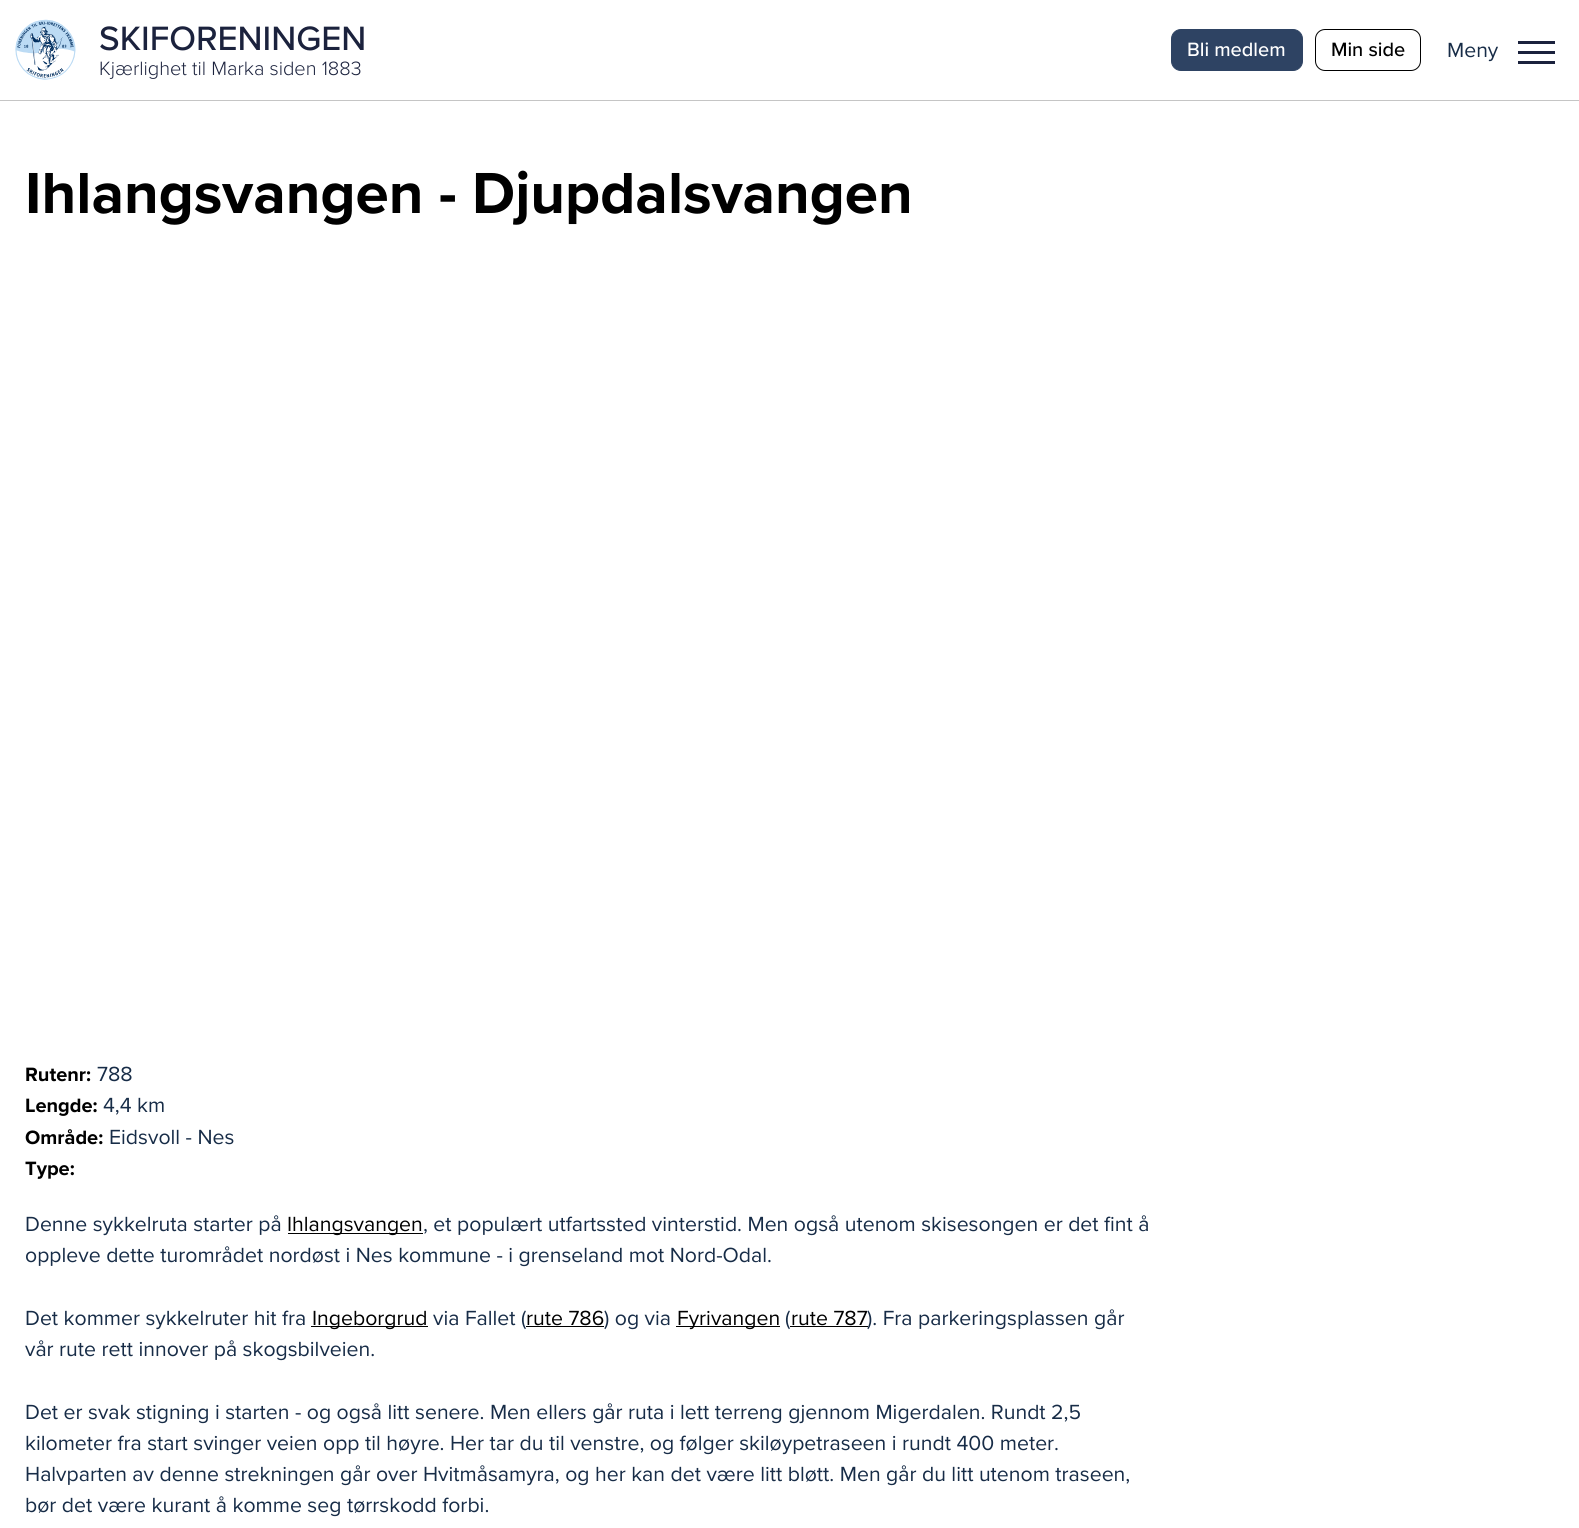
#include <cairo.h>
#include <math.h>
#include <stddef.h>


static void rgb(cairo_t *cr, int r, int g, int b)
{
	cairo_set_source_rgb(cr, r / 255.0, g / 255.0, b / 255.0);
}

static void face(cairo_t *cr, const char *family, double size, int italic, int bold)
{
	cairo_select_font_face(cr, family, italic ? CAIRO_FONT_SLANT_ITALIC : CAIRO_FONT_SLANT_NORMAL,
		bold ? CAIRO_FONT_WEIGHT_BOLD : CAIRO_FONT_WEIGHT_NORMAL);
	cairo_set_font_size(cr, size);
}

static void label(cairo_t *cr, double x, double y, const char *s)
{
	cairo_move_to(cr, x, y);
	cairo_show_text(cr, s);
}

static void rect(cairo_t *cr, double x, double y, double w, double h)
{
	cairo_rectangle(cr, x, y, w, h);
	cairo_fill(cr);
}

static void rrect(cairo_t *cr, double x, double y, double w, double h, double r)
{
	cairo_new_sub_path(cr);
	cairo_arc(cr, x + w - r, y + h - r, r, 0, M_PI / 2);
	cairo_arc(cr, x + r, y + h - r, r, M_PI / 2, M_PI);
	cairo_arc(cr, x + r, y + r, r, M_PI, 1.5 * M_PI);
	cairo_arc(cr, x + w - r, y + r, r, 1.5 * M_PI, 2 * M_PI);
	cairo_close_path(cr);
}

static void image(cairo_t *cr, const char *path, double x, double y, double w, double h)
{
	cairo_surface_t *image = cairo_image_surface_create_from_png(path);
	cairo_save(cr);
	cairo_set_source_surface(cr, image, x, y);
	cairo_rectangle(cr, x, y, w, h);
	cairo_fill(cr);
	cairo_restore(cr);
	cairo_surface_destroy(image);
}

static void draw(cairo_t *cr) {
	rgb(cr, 255, 255, 255);
	cairo_paint(cr);
	rgb(cr, 197, 197, 197);
	rect(cr, 0, 100, 1579, 1);
	image(cr, "image0.png", 15, 19, 61, 61);
	face(cr, "Proxima Nova Medium", 35, 0, 0);
	rgb(cr, 27, 34, 61);
	label(cr, 99, 50, "SKIFORENINGEN");
	face(cr, "Proxima Nova Light", 20, 0, 0);
	label(cr, 99, 75, "Kjærlighet til Marka siden 1883");
	rgb(cr, 46, 67, 99);
	rrect(cr, 1171.5, 29.5, 131, 41, 9.5);
	cairo_fill_preserve(cr);
	cairo_set_line_width(cr, 1);
	cairo_stroke(cr);
	face(cr, "Proxima Nova Medium", 20, 0, 0);
	rgb(cr, 255, 255, 255);
	label(cr, 1187, 56, "Bli medlem");
	rrect(cr, 1315.5, 29.5, 105, 41, 9.5);
	rgb(cr, 0, 0, 0);
	cairo_stroke(cr);
	label(cr, 1331, 56, "Min side");
	face(cr, "Proxima Nova", 21.25, 0, 0);
	rgb(cr, 23, 44, 71);
	label(cr, 1447, 57, "Meny");
	rgb(cr, 27, 34, 61);
	rect(cr, 1518, 41, 37, 3);
	rect(cr, 1518, 51, 37, 3);
	rect(cr, 1518, 61, 37, 3);
	face(cr, "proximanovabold", 60, 0, 1);
	rgb(cr, 0, 0, 0);
	label(cr, 25, 213, "Ihlangsvangen - Djupdalsvangen");
	face(cr, "proximanovabold", 20, 0, 1);
	label(cr, 25, 1081, "Rutenr:");
	face(cr, "Proxima Nova", 21.25, 0, 0);
	rgb(cr, 23, 44, 71);
	label(cr, 97, 1081, "788");
	face(cr, "proximanovabold", 20, 0, 1);
	rgb(cr, 0, 0, 0);
	label(cr, 25, 1112, "Lengde:");
	face(cr, "Proxima Nova", 21.25, 0, 0);
	rgb(cr, 23, 44, 71);
	label(cr, 103, 1112, "4,4 km");
	face(cr, "proximanovabold", 20, 0, 1);
	rgb(cr, 0, 0, 0);
	label(cr, 25, 1144, "Område:");
	face(cr, "Proxima Nova", 21.25, 0, 0);
	rgb(cr, 23, 44, 71);
	label(cr, 109, 1144, "Eidsvoll - Nes");
	face(cr, "proximanovabold", 20, 0, 1);
	rgb(cr, 0, 0, 0);
	label(cr, 25, 1175, "Type:");
	face(cr, "Proxima Nova", 21.25, 0, 0);
	rgb(cr, 23, 44, 71);
	label(cr, 25, 1231, "Denne sykkelruta starter på");
	rgb(cr, 0, 0, 0);
	rect(cr, 288, 1233, 135, 1);
	label(cr, 287, 1231, "Ihlangsvangen");
	rgb(cr, 23, 44, 71);
	label(cr, 423, 1231, ", et populært utfartssted vinterstid. Men også utenom skisesongen er det fint å");
	label(cr, 25, 1262, "oppleve dette turområdet nordøst i Nes kommune - i grenseland mot Nord-Odal.");
	label(cr, 25, 1325, "Det kommer sykkelruter hit fra");
	rgb(cr, 0, 0, 0);
	rect(cr, 311, 1326, 117, 1);
	label(cr, 312, 1325, "Ingeborgrud");
	rgb(cr, 23, 44, 71);
	label(cr, 433, 1325, "via Fallet (");
	rgb(cr, 0, 0, 0);
	label(cr, 526, 1325, "rute 786");
	rect(cr, 526, 1326, 78, 1);
	rgb(cr, 23, 44, 71);
	label(cr, 604, 1325, ") og via");
	rgb(cr, 0, 0, 0);
	rect(cr, 676, 1326, 104, 1);
	label(cr, 677, 1325, "Fyrivangen");
	rgb(cr, 23, 44, 71);
	label(cr, 785, 1325, "(");
	rgb(cr, 0, 0, 0);
	label(cr, 791, 1325, "rute 787");
	rect(cr, 790, 1326, 78, 1);
	rgb(cr, 23, 44, 71);
	label(cr, 867, 1325, "). Fra parkeringsplassen går");
	label(cr, 25, 1356, "vår rute rett innover på skogsbilveien.");
	label(cr, 25, 1419, "Det er svak stigning i starten - og også litt senere. Men ellers går ruta i lett terreng gjennom Migerdalen. Rundt 2,5");
	label(cr, 25, 1450, "kilometer fra start svinger veien opp til høyre. Her tar du til venstre, og følger skiløypetraseen i rundt 400 meter.");
	label(cr, 25, 1481, "Halvparten av denne strekningen går over Hvitmåsamyra, og her kan det være litt bløtt. Men går du litt utenom traseen,");
	label(cr, 25, 1512, "bør det være kurant å komme seg tørrskodd forbi.");
}

int main(void) {
	cairo_surface_t *surface = cairo_image_surface_create(CAIRO_FORMAT_RGB24, 1579, 1528);
	cairo_t *cr = cairo_create(surface);
	cairo_font_options_t *options = cairo_font_options_create();
	cairo_font_options_set_hint_metrics(options, CAIRO_HINT_METRICS_OFF);
	cairo_font_options_set_hint_style(options, CAIRO_HINT_STYLE_NONE);
	cairo_set_font_options(cr, options);
	cairo_set_miter_limit(cr, 4);
	draw(cr);
	cairo_surface_write_to_png(surface, "render.png");
	cairo_font_options_destroy(options);
	cairo_destroy(cr);
	cairo_surface_destroy(surface);
	return 0;
}
